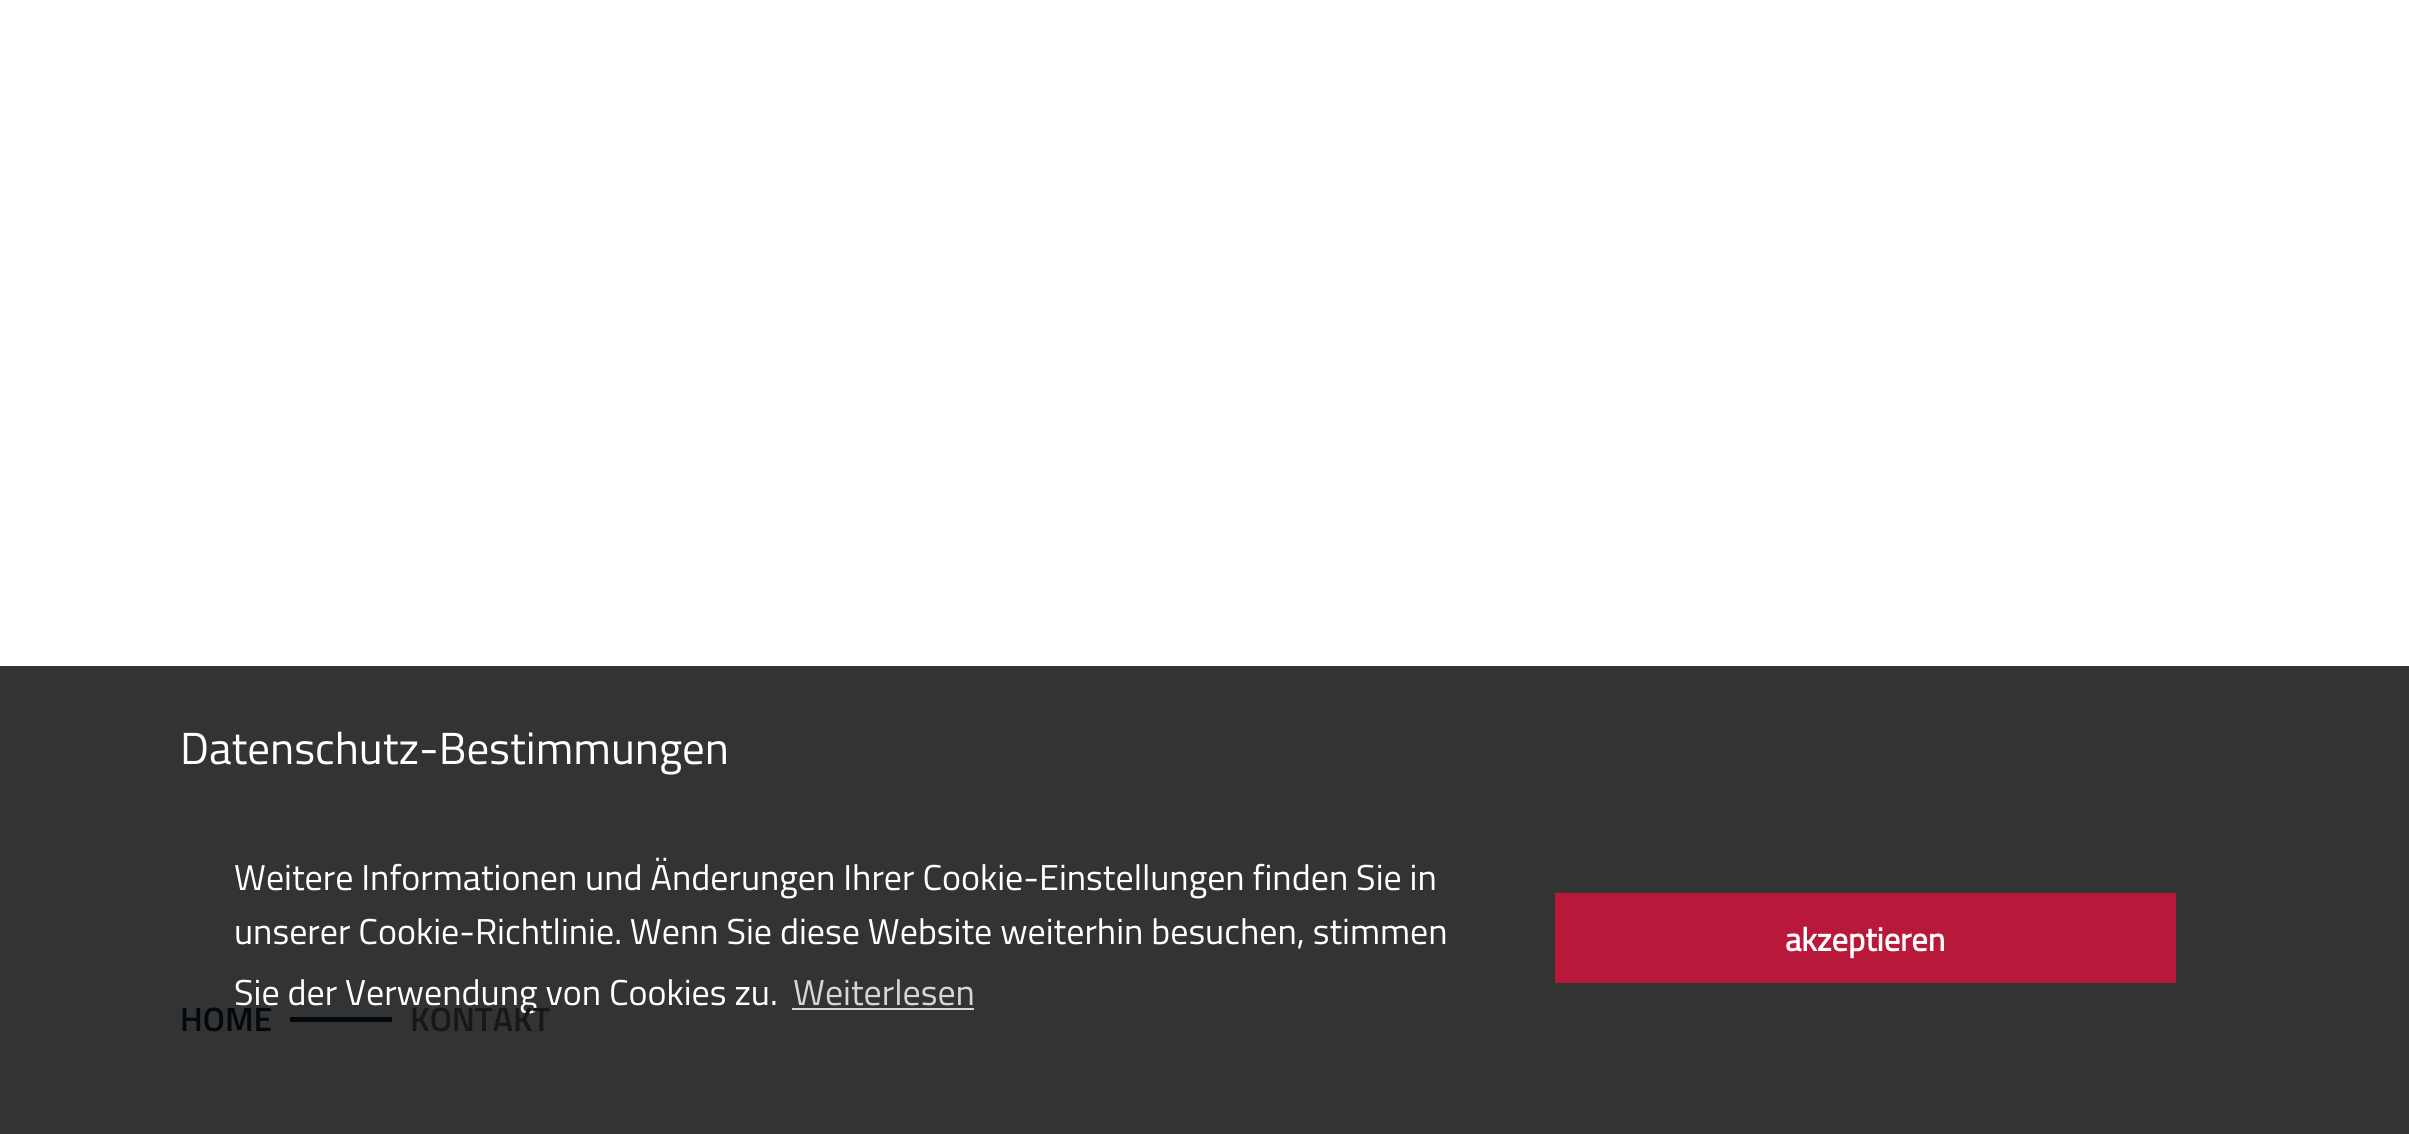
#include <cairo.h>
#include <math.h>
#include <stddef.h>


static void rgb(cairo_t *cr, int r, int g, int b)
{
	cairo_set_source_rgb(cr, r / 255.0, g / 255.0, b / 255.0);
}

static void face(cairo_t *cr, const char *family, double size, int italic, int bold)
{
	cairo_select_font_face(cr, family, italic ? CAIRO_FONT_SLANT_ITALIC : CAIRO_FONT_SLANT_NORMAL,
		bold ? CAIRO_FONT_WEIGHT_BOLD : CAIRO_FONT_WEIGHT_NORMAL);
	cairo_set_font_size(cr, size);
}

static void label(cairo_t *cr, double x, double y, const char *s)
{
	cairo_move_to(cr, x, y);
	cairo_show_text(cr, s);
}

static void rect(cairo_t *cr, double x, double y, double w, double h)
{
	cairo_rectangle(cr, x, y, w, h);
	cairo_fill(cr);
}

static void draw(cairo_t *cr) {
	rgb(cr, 255, 255, 255);
	cairo_paint(cr);
	rgb(cr, 51, 51, 51);
	rect(cr, 0, 666, 2409, 468);
	face(cr, "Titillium", 45, 0, 0);
	rgb(cr, 255, 255, 255);
	label(cr, 180, 764, "Datenschutz-Bestimmungen");
	face(cr, "Titillium", 36, 0, 0);
	label(cr, 234, 890, "Weitere Informationen und Änderungen Ihrer Cookie-Einstellungen finden Sie in");
	label(cr, 234, 944, "unserer Cookie-Richtlinie. Wenn Sie diese Website weiterhin besuchen, stimmen");
	label(cr, 234, 1005, "Sie der Verwendung von Cookies zu.");
	rgb(cr, 214, 214, 214);
	label(cr, 793, 1005, "Weiterlesen");
	rect(cr, 792, 1008, 182, 2);
	rgb(cr, 184, 24, 57);
	rect(cr, 1555, 893, 621, 90);
	face(cr, "Titillium", 32.5, 0, 1);
	rgb(cr, 255, 255, 255);
	label(cr, 1785, 951, "akzeptieren");
	face(cr, "Titillium SemiBold", 33.75, 0, 0);
	rgb(cr, 2, 9, 14);
	label(cr, 180, 1031, "HOME");
	rect(cr, 290, 1017, 102, 5);
	rgb(cr, 22, 23, 25);
	label(cr, 410, 1031, "KONTAKT");
}

int main(void) {
	cairo_surface_t *surface = cairo_image_surface_create(CAIRO_FORMAT_RGB24, 2409, 1134);
	cairo_t *cr = cairo_create(surface);
	cairo_font_options_t *options = cairo_font_options_create();
	cairo_font_options_set_hint_metrics(options, CAIRO_HINT_METRICS_OFF);
	cairo_font_options_set_hint_style(options, CAIRO_HINT_STYLE_NONE);
	cairo_set_font_options(cr, options);
	cairo_set_miter_limit(cr, 4);
	draw(cr);
	cairo_surface_write_to_png(surface, "render.png");
	cairo_font_options_destroy(options);
	cairo_destroy(cr);
	cairo_surface_destroy(surface);
	return 0;
}
